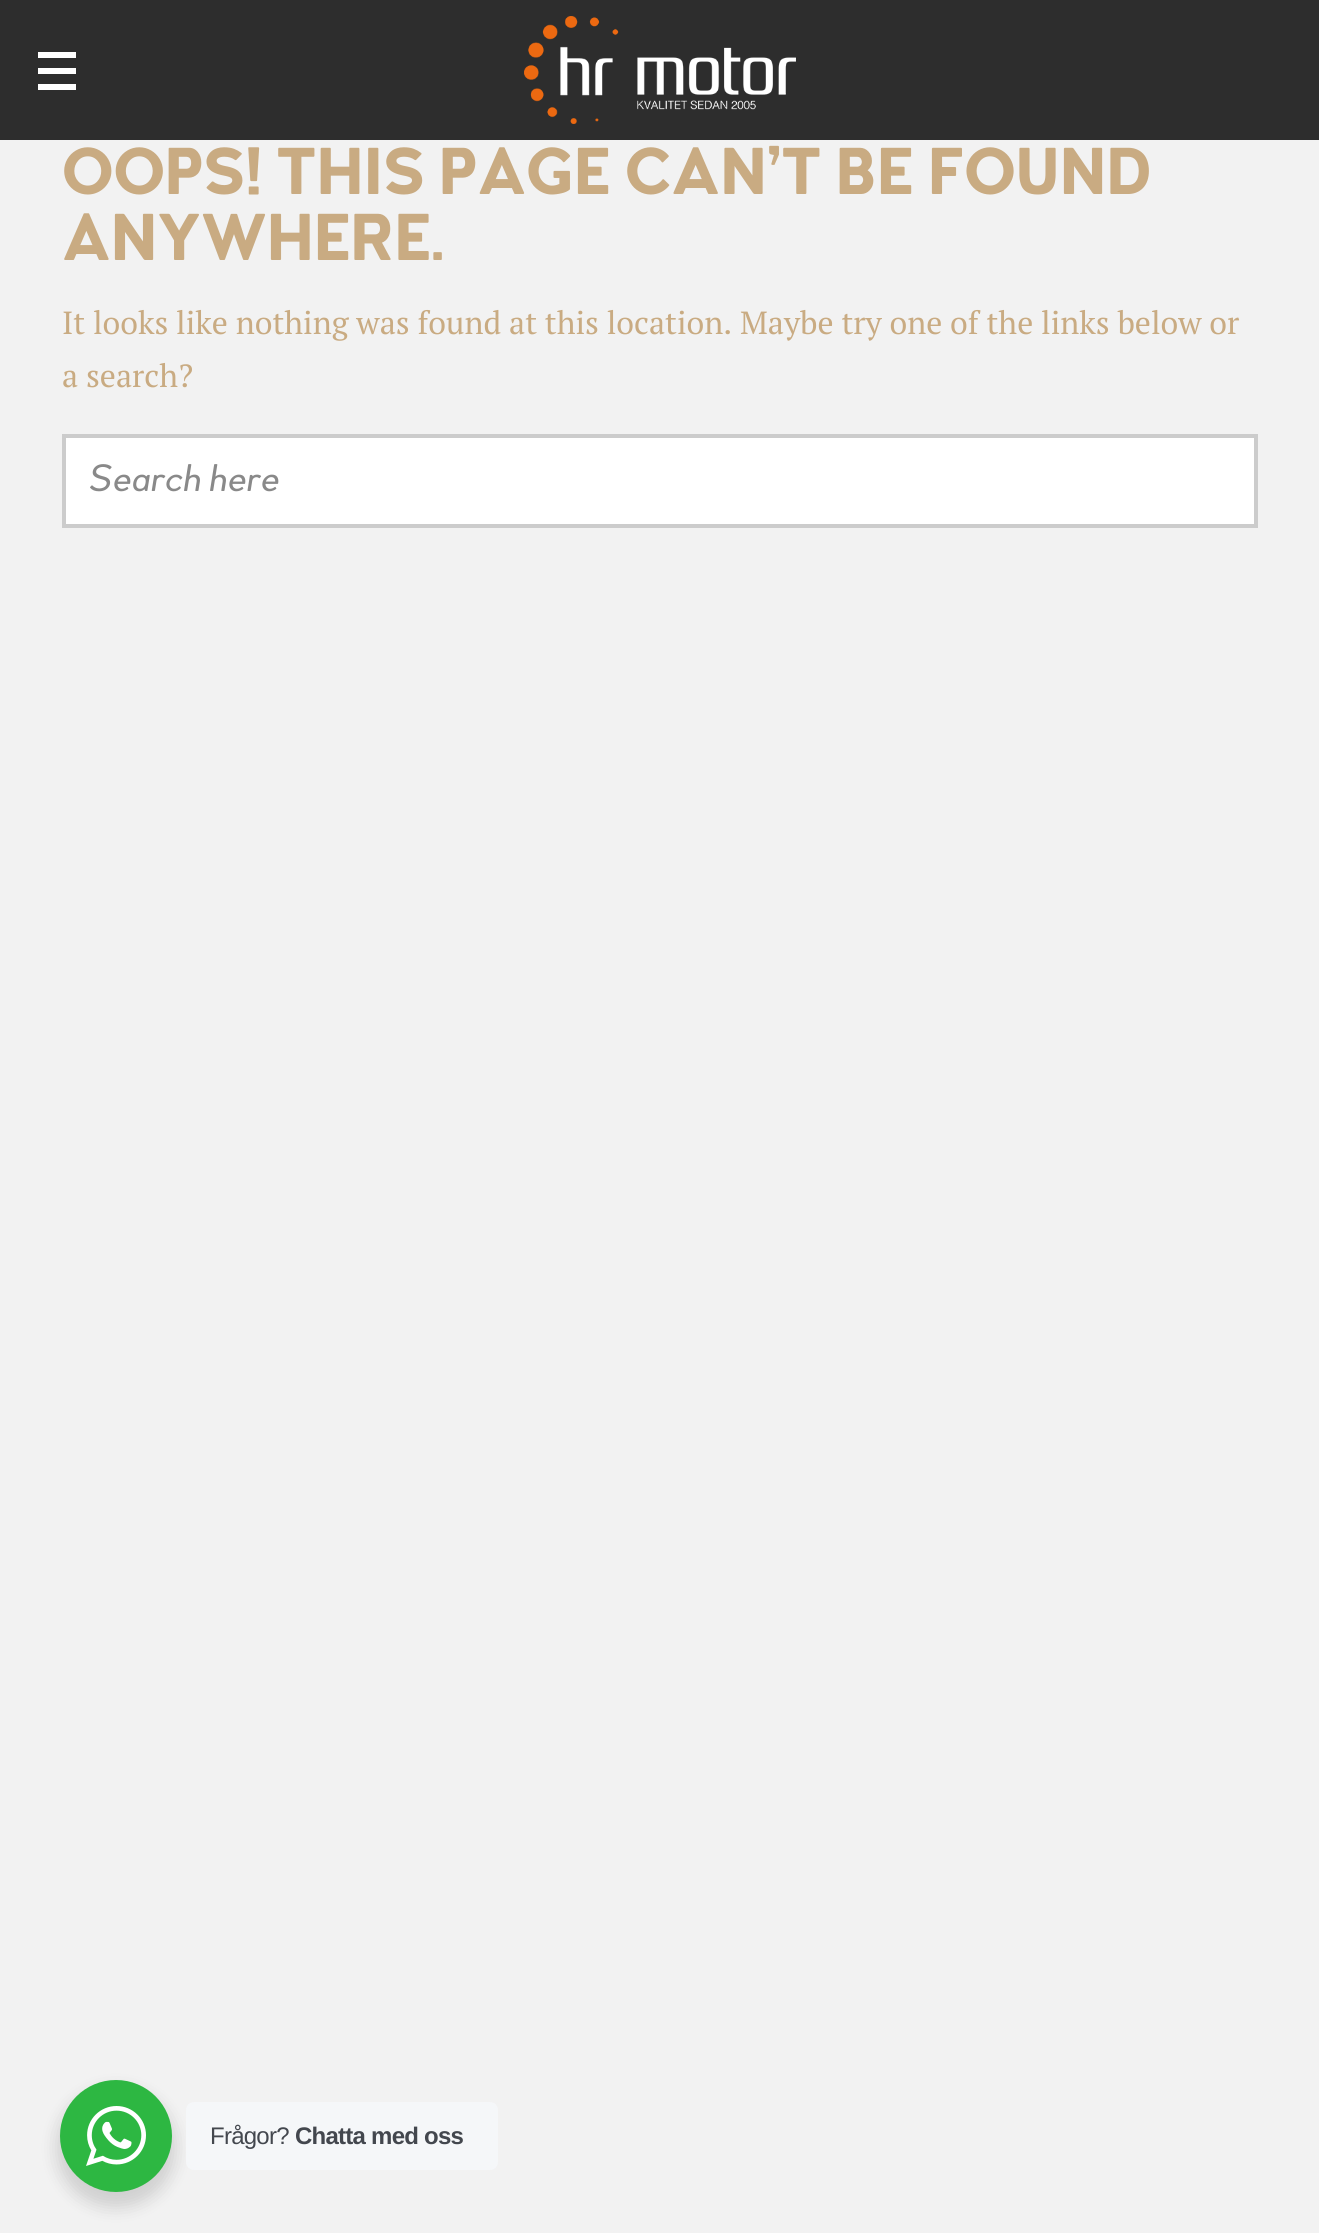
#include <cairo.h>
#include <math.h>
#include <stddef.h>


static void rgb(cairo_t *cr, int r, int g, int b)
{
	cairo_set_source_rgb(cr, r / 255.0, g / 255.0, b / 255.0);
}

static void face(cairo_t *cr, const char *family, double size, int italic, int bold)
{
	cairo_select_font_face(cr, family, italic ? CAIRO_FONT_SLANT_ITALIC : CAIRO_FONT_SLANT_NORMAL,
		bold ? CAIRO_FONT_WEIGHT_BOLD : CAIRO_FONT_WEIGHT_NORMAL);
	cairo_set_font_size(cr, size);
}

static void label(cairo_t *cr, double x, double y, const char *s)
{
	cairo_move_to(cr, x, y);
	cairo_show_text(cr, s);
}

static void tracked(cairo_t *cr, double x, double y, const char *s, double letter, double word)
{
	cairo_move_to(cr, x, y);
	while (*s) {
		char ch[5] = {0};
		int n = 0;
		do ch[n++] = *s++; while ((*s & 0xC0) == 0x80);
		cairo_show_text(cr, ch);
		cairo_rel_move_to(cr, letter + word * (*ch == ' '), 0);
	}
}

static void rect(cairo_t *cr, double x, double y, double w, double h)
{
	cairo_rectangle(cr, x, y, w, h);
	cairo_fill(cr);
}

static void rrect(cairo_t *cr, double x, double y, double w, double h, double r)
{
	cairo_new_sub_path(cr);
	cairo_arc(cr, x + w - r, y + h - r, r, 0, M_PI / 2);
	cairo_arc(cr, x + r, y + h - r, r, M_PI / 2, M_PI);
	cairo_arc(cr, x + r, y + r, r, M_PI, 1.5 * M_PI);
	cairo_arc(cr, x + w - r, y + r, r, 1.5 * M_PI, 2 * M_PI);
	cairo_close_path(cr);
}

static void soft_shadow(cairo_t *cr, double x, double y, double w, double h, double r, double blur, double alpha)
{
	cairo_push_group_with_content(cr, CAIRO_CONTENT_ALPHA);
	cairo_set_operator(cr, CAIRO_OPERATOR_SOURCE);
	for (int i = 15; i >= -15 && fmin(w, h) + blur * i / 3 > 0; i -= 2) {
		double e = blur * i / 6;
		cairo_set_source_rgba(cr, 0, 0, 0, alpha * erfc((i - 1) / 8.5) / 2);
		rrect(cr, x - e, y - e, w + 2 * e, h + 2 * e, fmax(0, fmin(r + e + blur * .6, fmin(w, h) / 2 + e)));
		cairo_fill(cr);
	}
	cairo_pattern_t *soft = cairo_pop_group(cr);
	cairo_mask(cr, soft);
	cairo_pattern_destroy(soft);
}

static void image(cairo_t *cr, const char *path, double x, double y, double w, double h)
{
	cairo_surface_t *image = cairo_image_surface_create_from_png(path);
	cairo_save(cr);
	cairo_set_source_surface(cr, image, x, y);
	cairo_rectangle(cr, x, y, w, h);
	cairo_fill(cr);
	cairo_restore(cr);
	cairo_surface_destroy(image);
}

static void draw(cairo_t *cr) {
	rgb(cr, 242, 242, 242);
	cairo_paint(cr);
	rgb(cr, 45, 45, 45);
	rect(cr, 0, 0, 1319, 140);
	rgb(cr, 255, 255, 255);
	rect(cr, 38, 52, 38, 6);
	rect(cr, 38, 68, 38, 6);
	rect(cr, 38, 84, 38, 6);
	image(cr, "image0.png", 524, 16, 272, 108);
	face(cr, "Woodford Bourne", 66, 0, 1);
	rgb(cr, 201, 171, 130);
	label(cr, 62, 194, "OOPS! THIS PAGE CAN’T BE FOUND");
	label(cr, 62, 260, "ANYWHERE.");
	face(cr, "PT Serif", 32, 0, 0);
	label(cr, 62, 334, "It looks like nothing was found at this location. Maybe try one of the links below or");
	label(cr, 62, 387, "a search?");
	rgb(cr, 255, 255, 255);
	cairo_rectangle(cr, 64, 436, 1192, 90);
	cairo_fill_preserve(cr);
	rgb(cr, 204, 204, 204);
	cairo_set_line_width(cr, 4);
	cairo_stroke(cr);
	face(cr, "Woodford Bourne", 38, 1, 0);
	rgb(cr, 137, 137, 137);
	label(cr, 88, 491, "Search here");
	rgb(cr, 0, 0, 0);
	soft_shadow(cr, 56, 2088, 120, 120, 60, 8, 0.14);
	rgb(cr, 45, 183, 66);
	cairo_arc(cr, 116, 2136, 56, 0, 2 * M_PI);
	cairo_fill(cr);
	image(cr, "image1.png", 86, 2106, 60, 60);
	rgb(cr, 245, 247, 249);
	rrect(cr, 186, 2102, 312, 68, 8);
	cairo_fill(cr);
	face(cr, "Liberation Sans", 24, 0, 0);
	rgb(cr, 67, 71, 78);
	tracked(cr, 210, 2144, "Frågor?", -0.75, 0);
	face(cr, "Liberation Sans", 24, 0, 1);
	tracked(cr, 295, 2144, "Chatta med oss", -0.75, 0);
}

int main(void) {
	cairo_surface_t *surface = cairo_image_surface_create(CAIRO_FORMAT_RGB24, 1319, 2233);
	cairo_t *cr = cairo_create(surface);
	cairo_font_options_t *options = cairo_font_options_create();
	cairo_font_options_set_hint_metrics(options, CAIRO_HINT_METRICS_OFF);
	cairo_font_options_set_hint_style(options, CAIRO_HINT_STYLE_NONE);
	cairo_set_font_options(cr, options);
	cairo_set_miter_limit(cr, 4);
	draw(cr);
	cairo_surface_write_to_png(surface, "render.png");
	cairo_font_options_destroy(options);
	cairo_destroy(cr);
	cairo_surface_destroy(surface);
	return 0;
}
